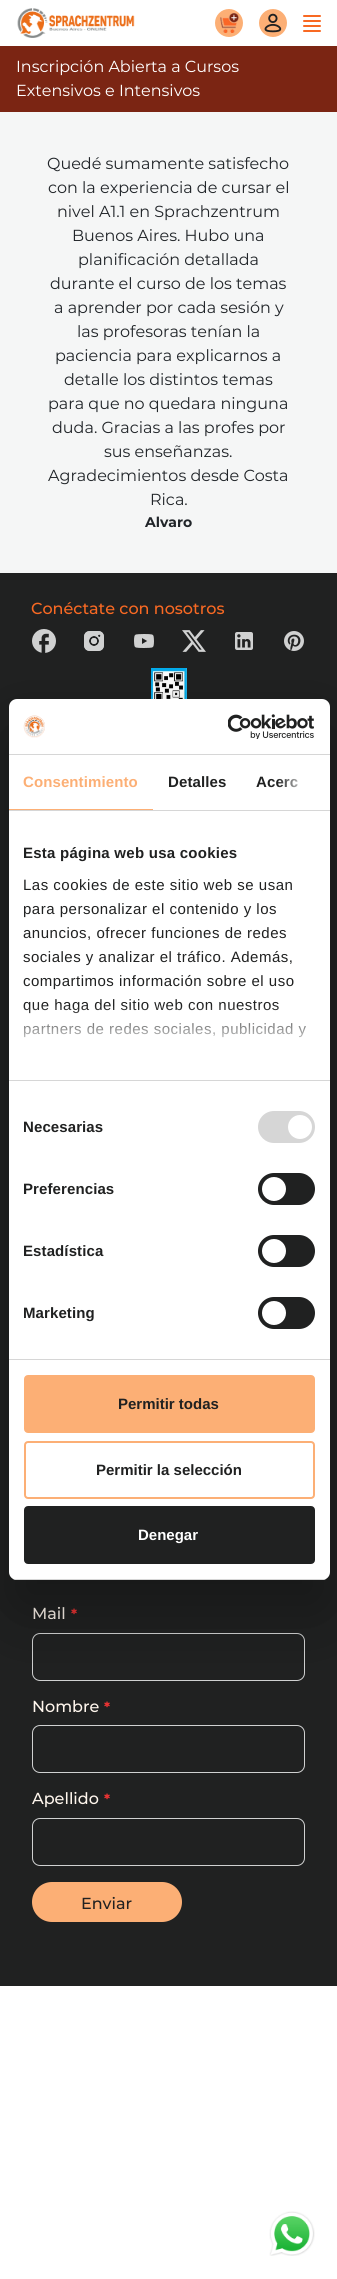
#include <cairo.h>
#include <math.h>
#include <stddef.h>


static void rgb(cairo_t *cr, int r, int g, int b)
{
	cairo_set_source_rgb(cr, r / 255.0, g / 255.0, b / 255.0);
}

static void face(cairo_t *cr, const char *family, double size, int italic, int bold)
{
	cairo_select_font_face(cr, family, italic ? CAIRO_FONT_SLANT_ITALIC : CAIRO_FONT_SLANT_NORMAL,
		bold ? CAIRO_FONT_WEIGHT_BOLD : CAIRO_FONT_WEIGHT_NORMAL);
	cairo_set_font_size(cr, size);
}

static void label(cairo_t *cr, double x, double y, const char *s)
{
	cairo_move_to(cr, x, y);
	cairo_show_text(cr, s);
}

static void tracked(cairo_t *cr, double x, double y, const char *s, double letter, double word)
{
	cairo_move_to(cr, x, y);
	while (*s) {
		char ch[5] = {0};
		int n = 0;
		do ch[n++] = *s++; while ((*s & 0xC0) == 0x80);
		cairo_show_text(cr, ch);
		cairo_rel_move_to(cr, letter + word * (*ch == ' '), 0);
	}
}

static void rect(cairo_t *cr, double x, double y, double w, double h)
{
	cairo_rectangle(cr, x, y, w, h);
	cairo_fill(cr);
}

static void rrect(cairo_t *cr, double x, double y, double w, double h, double r)
{
	cairo_new_sub_path(cr);
	cairo_arc(cr, x + w - r, y + h - r, r, 0, M_PI / 2);
	cairo_arc(cr, x + r, y + h - r, r, M_PI / 2, M_PI);
	cairo_arc(cr, x + r, y + r, r, M_PI, 1.5 * M_PI);
	cairo_arc(cr, x + w - r, y + r, r, 1.5 * M_PI, 2 * M_PI);
	cairo_close_path(cr);
}

static void soft_shadow(cairo_t *cr, double x, double y, double w, double h, double r, double blur, double alpha)
{
	cairo_push_group_with_content(cr, CAIRO_CONTENT_ALPHA);
	cairo_set_operator(cr, CAIRO_OPERATOR_SOURCE);
	for (int i = 15; i >= -15 && fmin(w, h) + blur * i / 3 > 0; i -= 2) {
		double e = blur * i / 6;
		cairo_set_source_rgba(cr, 0, 0, 0, alpha * erfc((i - 1) / 8.5) / 2);
		rrect(cr, x - e, y - e, w + 2 * e, h + 2 * e, fmax(0, fmin(r + e + blur * .6, fmin(w, h) / 2 + e)));
		cairo_fill(cr);
	}
	cairo_pattern_t *soft = cairo_pop_group(cr);
	cairo_mask(cr, soft);
	cairo_pattern_destroy(soft);
}

static void image(cairo_t *cr, const char *path, double x, double y, double w, double h)
{
	cairo_surface_t *image = cairo_image_surface_create_from_png(path);
	cairo_save(cr);
	cairo_set_source_surface(cr, image, x, y);
	cairo_rectangle(cr, x, y, w, h);
	cairo_fill(cr);
	cairo_restore(cr);
	cairo_surface_destroy(image);
}

static void draw(cairo_t *cr) {
	cairo_pattern_t *gradient;
	rgb(cr, 255, 255, 255);
	cairo_paint(cr);
	image(cr, "image0.png", 17, 8, 118, 30);
	rgb(cr, 252, 175, 117);
	cairo_arc(cr, 229, 23, 14, 0, 2 * M_PI);
	cairo_fill(cr);
	image(cr, "image1.png", 220, 13, 19, 20);
	cairo_arc(cr, 273, 23, 14, 0, 2 * M_PI);
	cairo_fill(cr);
	image(cr, "image2.png", 264, 13, 18, 20);
	image(cr, "image3.png", 303, 15, 18, 17);
	rgb(cr, 123, 37, 19);
	rect(cr, 0, 46, 337, 66);
	face(cr, "Montserrat", 16, 0, 0);
	rgb(cr, 255, 255, 255);
	label(cr, 16, 72, "Inscripción Abierta a Cursos");
	label(cr, 16, 96, "Extensivos e Intensivos");
	rgb(cr, 245, 246, 246);
	rect(cr, 0, 112, 337, 461);
	rgb(cr, 33, 37, 41);
	label(cr, 47, 169, "Quedé sumamente satisfecho");
	label(cr, 48, 193, "con la experiencia de cursar el");
	label(cr, 57, 217, "nivel A1.1 en Sprachzentrum");
	label(cr, 72, 241, "Buenos Aires. Hubo una");
	label(cr, 78, 265, "planificación detallada");
	label(cr, 50, 289, "durante el curso de los temas");
	label(cr, 54, 313, "a aprender por cada sesión y");
	label(cr, 77, 337, "las profesoras tenían la");
	label(cr, 55, 361, "paciencia para explicarnos a");
	label(cr, 64, 385, "detalle los distintos temas");
	label(cr, 48, 409, "para que no quedara ninguna");
	label(cr, 52, 433, "duda. Gracias a las profes por");
	label(cr, 104, 457, "sus enseñanzas.");
	label(cr, 48, 481, "Agradecimientos desde Costa");
	label(cr, 150, 505, "Rica.");
	face(cr, "Montserrat", 14, 0, 1);
	label(cr, 145, 527, "Alvaro");
	image(cr, "image4.png", 269, 2211, 46, 45);
	rgb(cr, 32, 33, 33);
	rect(cr, 0, 573, 337, 1413);
	face(cr, "Montserrat Medium", 16, 0, 0);
	rgb(cr, 248, 105, 35);
	label(cr, 31, 614, "Conéctate con nosotros");
	image(cr, "image5.png", 32, 629, 24, 24);
	image(cr, "image6.png", 84, 631, 20, 20);
	image(cr, "image7.png", 134, 634, 20, 14);
	image(cr, "image8.png", 182, 630, 24, 22);
	image(cr, "image9.png", 235, 632, 18, 18);
	image(cr, "image10.png", 284, 631, 20, 20);
	image(cr, "image11.png", 151, 668, 36, 31);
	rgb(cr, 255, 246, 237);
	label(cr, 32, 1619, "Mail");
	face(cr, "Montserrat", 14, 0, 1);
	rgb(cr, 241, 51, 51);
	label(cr, 71, 1619, "*");
	rrect(cr, 32.5, 1633.5, 272, 47, 7.5);
	rgb(cr, 208, 209, 209);
	cairo_set_line_width(cr, 1);
	cairo_stroke(cr);
	face(cr, "Montserrat Medium", 16, 0, 0);
	rgb(cr, 255, 246, 237);
	label(cr, 32, 1712, "Nombre");
	face(cr, "Montserrat", 14, 0, 1);
	rgb(cr, 241, 51, 51);
	label(cr, 104, 1712, "*");
	rrect(cr, 32.5, 1725.5, 272, 47, 7.5);
	rgb(cr, 208, 209, 209);
	cairo_stroke(cr);
	face(cr, "Montserrat Medium", 16, 0, 0);
	rgb(cr, 255, 246, 237);
	label(cr, 32, 1804, "Apellido");
	face(cr, "Montserrat", 14, 0, 1);
	rgb(cr, 241, 51, 51);
	label(cr, 104, 1804, "*");
	rrect(cr, 32.5, 1818.5, 272, 47, 7.5);
	rgb(cr, 208, 209, 209);
	cairo_stroke(cr);
	rgb(cr, 252, 175, 117);
	rrect(cr, 32, 1882, 150, 40, 20);
	cairo_fill(cr);
	face(cr, "Montserrat Medium", 16, 0, 0);
	rgb(cr, 32, 33, 33);
	label(cr, 81, 1909, "Enviar");
	rgb(cr, 0, 0, 0);
	soft_shadow(cr, 9, 731, 321, 881, 8, 34, 0.3);
	rgb(cr, 255, 255, 255);
	rrect(cr, 9, 699, 321, 881, 8);
	cairo_fill(cr);
	rgb(cr, 214, 214, 214);
	rect(cr, 9, 754, 321, 1);
	image(cr, "image12.png", 23, 715, 22, 23);
	image(cr, "image13.png", 228, 714, 86, 25);
	rect(cr, 9, 810, 321, 1);
	rgb(cr, 252, 175, 117);
	rect(cr, 9, 809, 144, 1);
	face(cr, "Liberation Sans", 15, 0, 1);
	tracked(cr, 23, 787, "Consentimiento", 0.1, 0);
	rgb(cr, 32, 33, 33);
	tracked(cr, 168, 787, "Detalles", 0.1, 0);
	tracked(cr, 256, 787, "Acerc", 0.1, 0);
	gradient = cairo_pattern_create_linear(330, 783, 277, 783);
	cairo_pattern_add_color_stop_rgba(gradient, 0, 1, 1, 1, 1);
	cairo_pattern_add_color_stop_rgba(gradient, 0.5, 1, 1, 1, 0.8);
	cairo_pattern_add_color_stop_rgba(gradient, 1, 1, 1, 1, 0);
	cairo_set_source(cr, gradient);
	cairo_pattern_destroy(gradient);
	rect(cr, 278, 778, 20, 10);
	rgb(cr, 214, 214, 214);
	rect(cr, 9, 1080, 321, 1);
	rgb(cr, 32, 33, 33);
	tracked(cr, 23, 858, "Esta página web usa cookies", 0.25, 0);
	face(cr, "Liberation Sans", 15, 0, 0);
	tracked(cr, 23, 890, "Las cookies de este sitio web se usan", 0.5, 0);
	tracked(cr, 23, 914, "para personalizar el contenido y los", 0.5, 0);
	tracked(cr, 23, 938, "anuncios, ofrecer funciones de redes", 0.5, 0);
	tracked(cr, 23, 962, "sociales y analizar el tráfico. Además,", 0.5, 0);
	tracked(cr, 23, 986, "compartimos información sobre el uso", 0.5, 0);
	tracked(cr, 23, 1010, "que haga del sitio web con nuestros", 0.5, 0);
	tracked(cr, 23, 1034, "partners de redes sociales, publicidad y", 0.5, 0);
	gradient = cairo_pattern_create_linear(163, 1080, 163, 1005);
	cairo_pattern_add_color_stop_rgba(gradient, 0, 1, 1, 1, 1);
	cairo_pattern_add_color_stop_rgba(gradient, 0.5, 1, 1, 1, 0.8);
	cairo_pattern_add_color_stop_rgba(gradient, 1, 1, 1, 1, 0);
	cairo_set_source(cr, gradient);
	cairo_pattern_destroy(gradient);
	rect(cr, 23, 1006, 283, 32);
	rgb(cr, 214, 214, 214);
	rect(cr, 9, 1359, 321, 1);
	face(cr, "Liberation Sans", 15, 0, 1);
	rgb(cr, 32, 33, 33);
	tracked(cr, 23, 1132, "Necesarias", 0.1, 0);
	rgb(cr, 214, 214, 214);
	rrect(cr, 258, 1111, 57, 32, 16);
	cairo_fill(cr);
	rgb(cr, 255, 255, 255);
	cairo_arc(cr, 300, 1127, 12, 0, 2 * M_PI);
	cairo_fill(cr);
	rgb(cr, 32, 33, 33);
	tracked(cr, 23, 1194, "Preferencias", 0.1, 0);
	rrect(cr, 258, 1173, 57, 32, 16);
	cairo_fill(cr);
	rgb(cr, 255, 255, 255);
	cairo_arc(cr, 274, 1189, 12, 0, 2 * M_PI);
	cairo_fill(cr);
	rgb(cr, 32, 33, 33);
	tracked(cr, 23, 1256, "Estadística", 0.1, 0);
	rrect(cr, 258, 1235, 57, 32, 16);
	cairo_fill(cr);
	rgb(cr, 255, 255, 255);
	cairo_arc(cr, 274, 1251, 12, 0, 2 * M_PI);
	cairo_fill(cr);
	rgb(cr, 32, 33, 33);
	tracked(cr, 23, 1318, "Marketing", 0.1, 0);
	rrect(cr, 258, 1297, 57, 32, 16);
	cairo_fill(cr);
	rgb(cr, 255, 255, 255);
	cairo_arc(cr, 274, 1313, 12, 0, 2 * M_PI);
	cairo_fill(cr);
	cairo_save(cr);
	rrect(cr, 9, 699, 321, 881, 8);
	cairo_clip(cr);
	rgb(cr, 214, 214, 214);
	rect(cr, 9, 1579, 321, 1);
	cairo_restore(cr);
	rgb(cr, 252, 175, 117);
	rrect(cr, 25, 1376, 289, 56, 3);
	cairo_fill_preserve(cr);
	cairo_set_line_width(cr, 2);
	cairo_stroke(cr);
	rgb(cr, 32, 33, 33);
	label(cr, 118, 1409, "Permitir todas");
	rrect(cr, 25, 1442, 289, 56, 3);
	rgb(cr, 252, 175, 117);
	cairo_stroke(cr);
	rgb(cr, 32, 33, 33);
	label(cr, 96, 1475, "Permitir la selección");
	rrect(cr, 25, 1507, 289, 56, 3);
	cairo_fill_preserve(cr);
	cairo_stroke(cr);
	rgb(cr, 255, 255, 255);
	label(cr, 138, 1540, "Denegar");
}

int main(void) {
	cairo_surface_t *surface = cairo_image_surface_create(CAIRO_FORMAT_RGB24, 337, 2279);
	cairo_t *cr = cairo_create(surface);
	cairo_font_options_t *options = cairo_font_options_create();
	cairo_font_options_set_hint_metrics(options, CAIRO_HINT_METRICS_OFF);
	cairo_font_options_set_hint_style(options, CAIRO_HINT_STYLE_NONE);
	cairo_set_font_options(cr, options);
	cairo_set_miter_limit(cr, 4);
	draw(cr);
	cairo_surface_write_to_png(surface, "render.png");
	cairo_font_options_destroy(options);
	cairo_destroy(cr);
	cairo_surface_destroy(surface);
	return 0;
}
